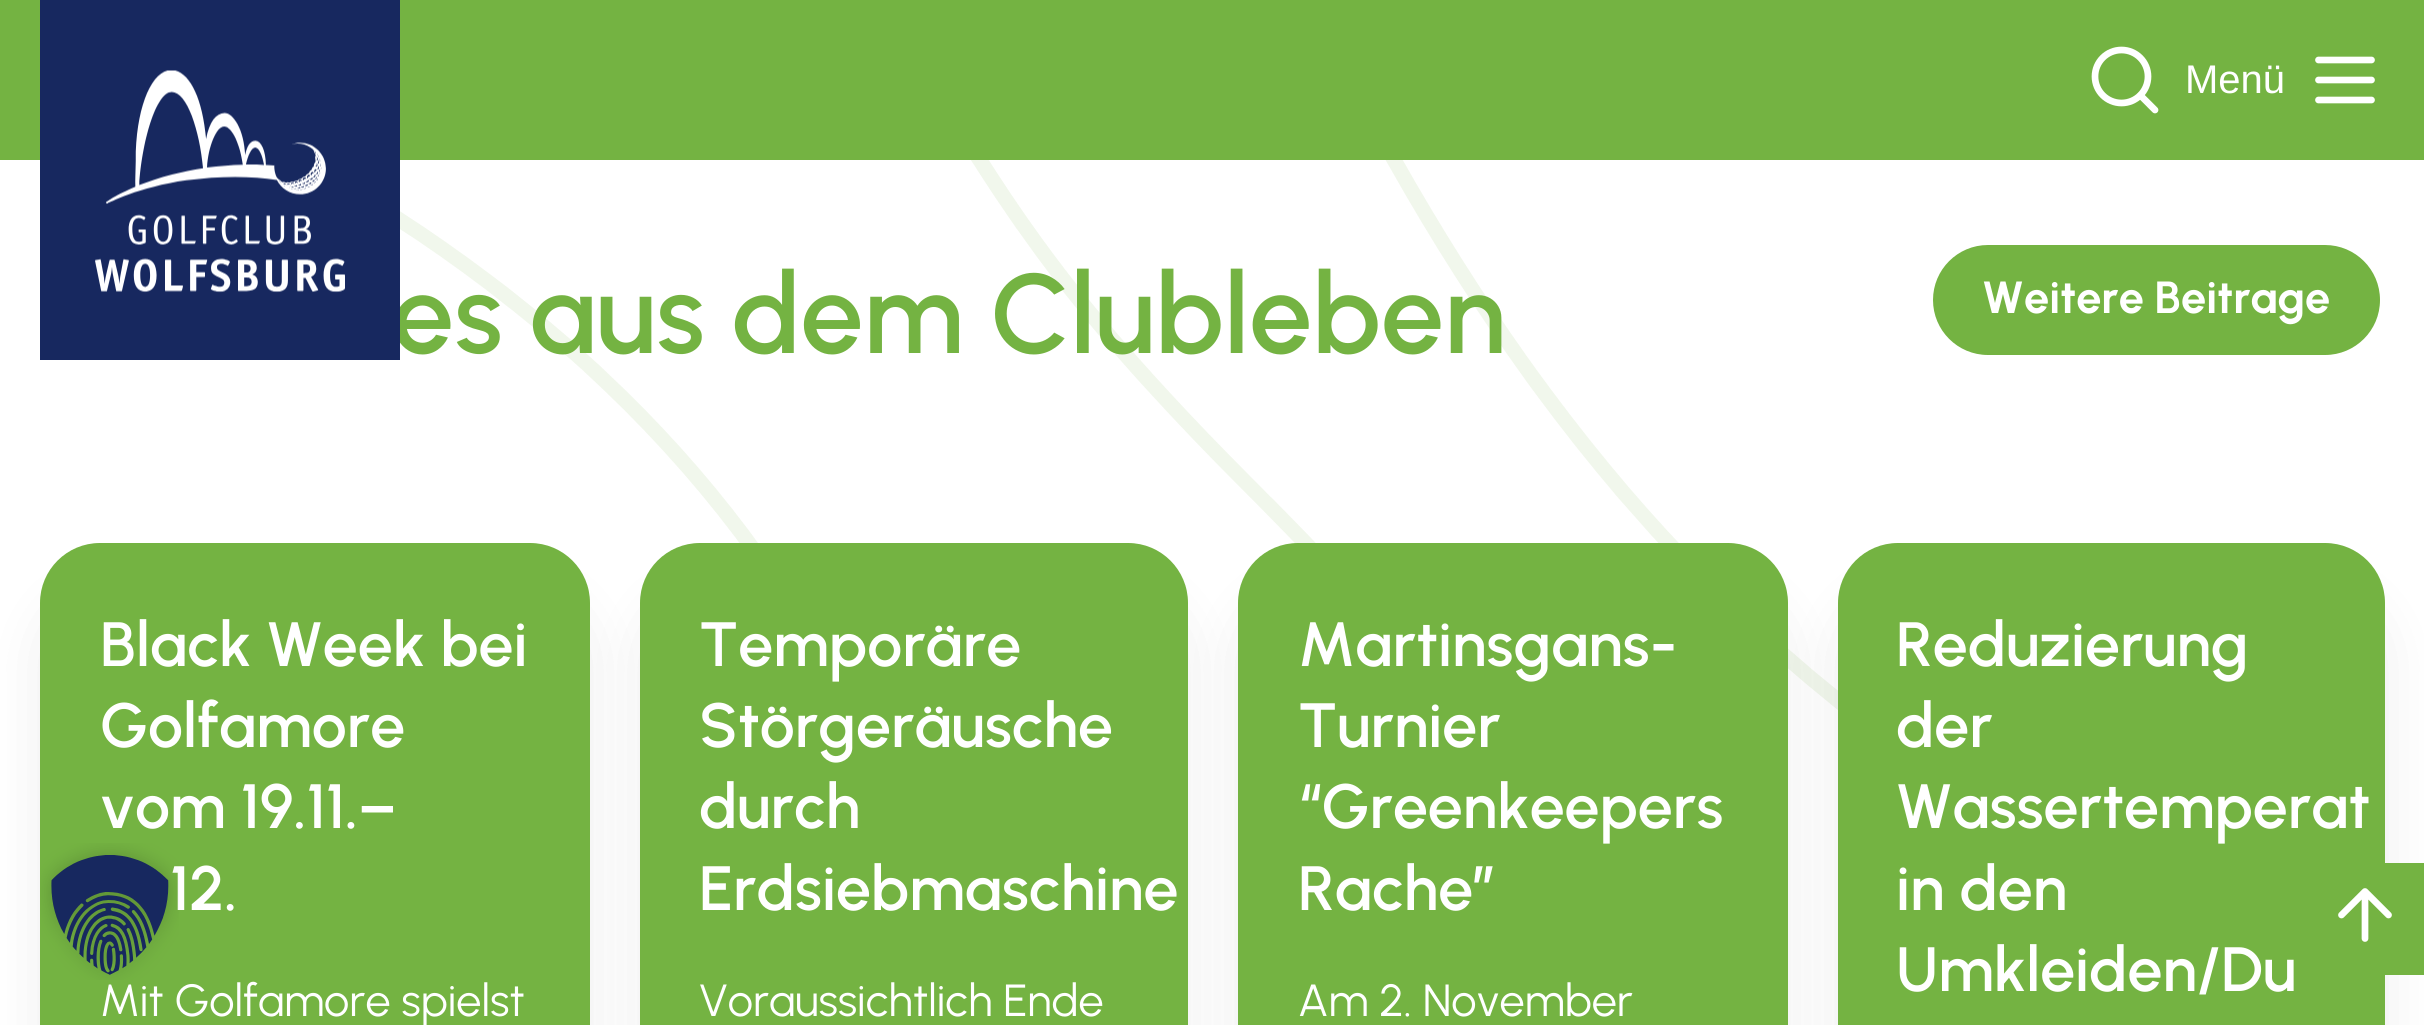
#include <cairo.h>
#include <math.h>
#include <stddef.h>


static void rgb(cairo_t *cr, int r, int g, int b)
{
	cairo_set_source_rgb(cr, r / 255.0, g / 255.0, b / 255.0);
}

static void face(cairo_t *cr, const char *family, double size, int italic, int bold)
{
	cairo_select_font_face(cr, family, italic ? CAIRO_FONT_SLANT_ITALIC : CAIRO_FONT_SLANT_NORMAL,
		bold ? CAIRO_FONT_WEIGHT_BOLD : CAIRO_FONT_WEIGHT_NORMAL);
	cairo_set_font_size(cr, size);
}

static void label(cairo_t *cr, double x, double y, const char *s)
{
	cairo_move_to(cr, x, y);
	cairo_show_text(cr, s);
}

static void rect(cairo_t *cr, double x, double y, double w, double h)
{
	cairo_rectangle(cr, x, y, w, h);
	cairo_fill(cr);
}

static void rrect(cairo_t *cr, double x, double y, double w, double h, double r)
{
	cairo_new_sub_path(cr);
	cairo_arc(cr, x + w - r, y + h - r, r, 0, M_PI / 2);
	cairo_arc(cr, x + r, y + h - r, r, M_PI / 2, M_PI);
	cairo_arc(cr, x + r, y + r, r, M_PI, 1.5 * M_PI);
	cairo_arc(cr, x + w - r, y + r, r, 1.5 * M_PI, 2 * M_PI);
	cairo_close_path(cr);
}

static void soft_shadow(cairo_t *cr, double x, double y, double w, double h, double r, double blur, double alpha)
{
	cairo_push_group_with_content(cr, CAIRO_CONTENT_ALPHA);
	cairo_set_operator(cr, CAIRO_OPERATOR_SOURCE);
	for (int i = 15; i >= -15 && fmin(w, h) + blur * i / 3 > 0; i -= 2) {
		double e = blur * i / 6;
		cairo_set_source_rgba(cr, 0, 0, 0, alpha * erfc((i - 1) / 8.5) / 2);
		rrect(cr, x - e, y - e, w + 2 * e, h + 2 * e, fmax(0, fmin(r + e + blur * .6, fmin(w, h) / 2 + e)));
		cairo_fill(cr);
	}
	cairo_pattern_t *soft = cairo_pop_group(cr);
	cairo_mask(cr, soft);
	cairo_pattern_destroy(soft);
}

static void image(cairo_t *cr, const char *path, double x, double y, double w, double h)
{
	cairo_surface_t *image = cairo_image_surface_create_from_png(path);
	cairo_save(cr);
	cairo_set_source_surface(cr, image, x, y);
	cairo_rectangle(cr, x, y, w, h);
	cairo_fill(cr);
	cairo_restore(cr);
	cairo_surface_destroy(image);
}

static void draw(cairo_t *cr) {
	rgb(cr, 255, 255, 255);
	cairo_paint(cr);
	image(cr, "image0.png", 400, 160, 1438, 550);
	rgb(cr, 116, 179, 66);
	rect(cr, 0, 0, 2424, 160);
	face(cr, "Urbanist SemiBold", 112.5, 0, 0);
	label(cr, 391, 353, "es aus dem Clubleben");
	rgb(cr, 23, 40, 95);
	rect(cr, 40, 0, 360, 360);
	image(cr, "image1.png", 95, 70, 250, 223);
	cairo_arc(cr, 2121.5, 76.5, 26.5, 0, 2 * M_PI);
	rgb(cr, 255, 255, 255);
	cairo_set_line_width(cr, 6.7);
	cairo_stroke(cr);
	cairo_new_path(cr);
	cairo_move_to(cr, 2155, 110);
	cairo_line_to(cr, 2140.5, 95.5);
	cairo_set_line_cap(cr, CAIRO_LINE_CAP_ROUND);
	cairo_set_line_join(cr, CAIRO_LINE_JOIN_ROUND);
	cairo_stroke(cr);
	face(cr, "Liberation Sans", 40, 0, 0);
	label(cr, 2185, 93, "Menü");
	cairo_new_path(cr);
	cairo_move_to(cr, 2318.5, 80);
	cairo_line_to(cr, 2371.5, 80);
	cairo_move_to(cr, 2318.5, 60);
	cairo_line_to(cr, 2371.5, 60);
	cairo_move_to(cr, 2318.5, 100);
	cairo_line_to(cr, 2371.5, 100);
	cairo_stroke(cr);
	rgb(cr, 116, 179, 66);
	rrect(cr, 1930.5, 242.5, 452, 115, 57.5);
	cairo_fill_preserve(cr);
	rgb(cr, 255, 255, 255);
	cairo_set_line_width(cr, 5);
	cairo_set_line_cap(cr, CAIRO_LINE_CAP_BUTT);
	cairo_set_line_join(cr, CAIRO_LINE_JOIN_MITER);
	cairo_stroke(cr);
	face(cr, "Urbanist", 45, 0, 1);
	label(cr, 1982, 313, "Weitere Beitrage");
	rgb(cr, 0, 0, 0);
	soft_shadow(cr, 53, 605, 525, 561, 48, 31, 0.1);
	rgb(cr, 116, 179, 66);
	rrect(cr, 40, 543, 550, 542, 60);
	cairo_fill(cr);
	face(cr, "Urbanist SemiBold", 62.5, 0, 0);
	rgb(cr, 255, 255, 255);
	label(cr, 100, 666, "Black Week bei");
	label(cr, 100, 747, "Golfamore");
	label(cr, 100, 828, "vom 19.11.–");
	label(cr, 170, 910, "12.");
	face(cr, "Urbanist", 45, 0, 0);
	label(cr, 100, 1016, "Mit Golfamore spielst");
	rgb(cr, 0, 0, 0);
	soft_shadow(cr, 653, 605, 522, 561, 48, 31, 0.1);
	rgb(cr, 116, 179, 66);
	rrect(cr, 640, 543, 548, 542, 60);
	cairo_fill(cr);
	face(cr, "Urbanist SemiBold", 62.5, 0, 0);
	rgb(cr, 255, 255, 255);
	label(cr, 699, 666, "Temporäre");
	label(cr, 699, 747, "Störgeräusche");
	label(cr, 699, 828, "durch");
	label(cr, 699, 910, "Erdsiebmaschine");
	face(cr, "Urbanist", 45, 0, 0);
	label(cr, 699, 1016, "Voraussichtlich Ende");
	rgb(cr, 0, 0, 0);
	soft_shadow(cr, 1250, 605, 525, 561, 48, 31, 0.1);
	rgb(cr, 116, 179, 66);
	rrect(cr, 1238, 543, 550, 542, 60);
	cairo_fill(cr);
	face(cr, "Urbanist SemiBold", 62.5, 0, 0);
	rgb(cr, 255, 255, 255);
	label(cr, 1298, 666, "Martinsgans-");
	label(cr, 1298, 747, "Turnier");
	label(cr, 1298, 828, "“Greenkeepers");
	label(cr, 1298, 910, "Rache”");
	face(cr, "Urbanist", 45, 0, 0);
	label(cr, 1298, 1016, "Am 2. November");
	rgb(cr, 0, 0, 0);
	soft_shadow(cr, 1850, 605, 523, 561, 48, 31, 0.1);
	rgb(cr, 116, 179, 66);
	rrect(cr, 1838, 543, 547, 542, 60);
	cairo_fill(cr);
	face(cr, "Urbanist SemiBold", 62.5, 0, 0);
	rgb(cr, 255, 255, 255);
	label(cr, 1896, 666, "Reduzierung");
	label(cr, 1896, 747, "der");
	label(cr, 1896, 828, "Wassertemperat");
	label(cr, 1896, 910, "in den");
	label(cr, 1896, 991, "Umkleiden/Du");
	image(cr, "image2.png", 40, 843, 139, 137);
	rgb(cr, 116, 179, 66);
	rect(cr, 2385, 863, 39, 112);
	cairo_new_path(cr);
	cairo_move_to(cr, 2341.5, 915);
	cairo_line_to(cr, 2365, 891.5);
	cairo_line_to(cr, 2388.5, 915);
	cairo_move_to(cr, 2365, 938.5);
	cairo_line_to(cr, 2365, 891.5);
	rgb(cr, 255, 255, 255);
	cairo_set_line_width(cr, 6.7);
	cairo_set_line_cap(cr, CAIRO_LINE_CAP_ROUND);
	cairo_set_line_join(cr, CAIRO_LINE_JOIN_ROUND);
	cairo_stroke(cr);
}

int main(void) {
	cairo_surface_t *surface = cairo_image_surface_create(CAIRO_FORMAT_RGB24, 2424, 1025);
	cairo_t *cr = cairo_create(surface);
	cairo_font_options_t *options = cairo_font_options_create();
	cairo_font_options_set_hint_metrics(options, CAIRO_HINT_METRICS_OFF);
	cairo_font_options_set_hint_style(options, CAIRO_HINT_STYLE_NONE);
	cairo_set_font_options(cr, options);
	cairo_set_miter_limit(cr, 4);
	draw(cr);
	cairo_surface_write_to_png(surface, "render.png");
	cairo_font_options_destroy(options);
	cairo_destroy(cr);
	cairo_surface_destroy(surface);
	return 0;
}
